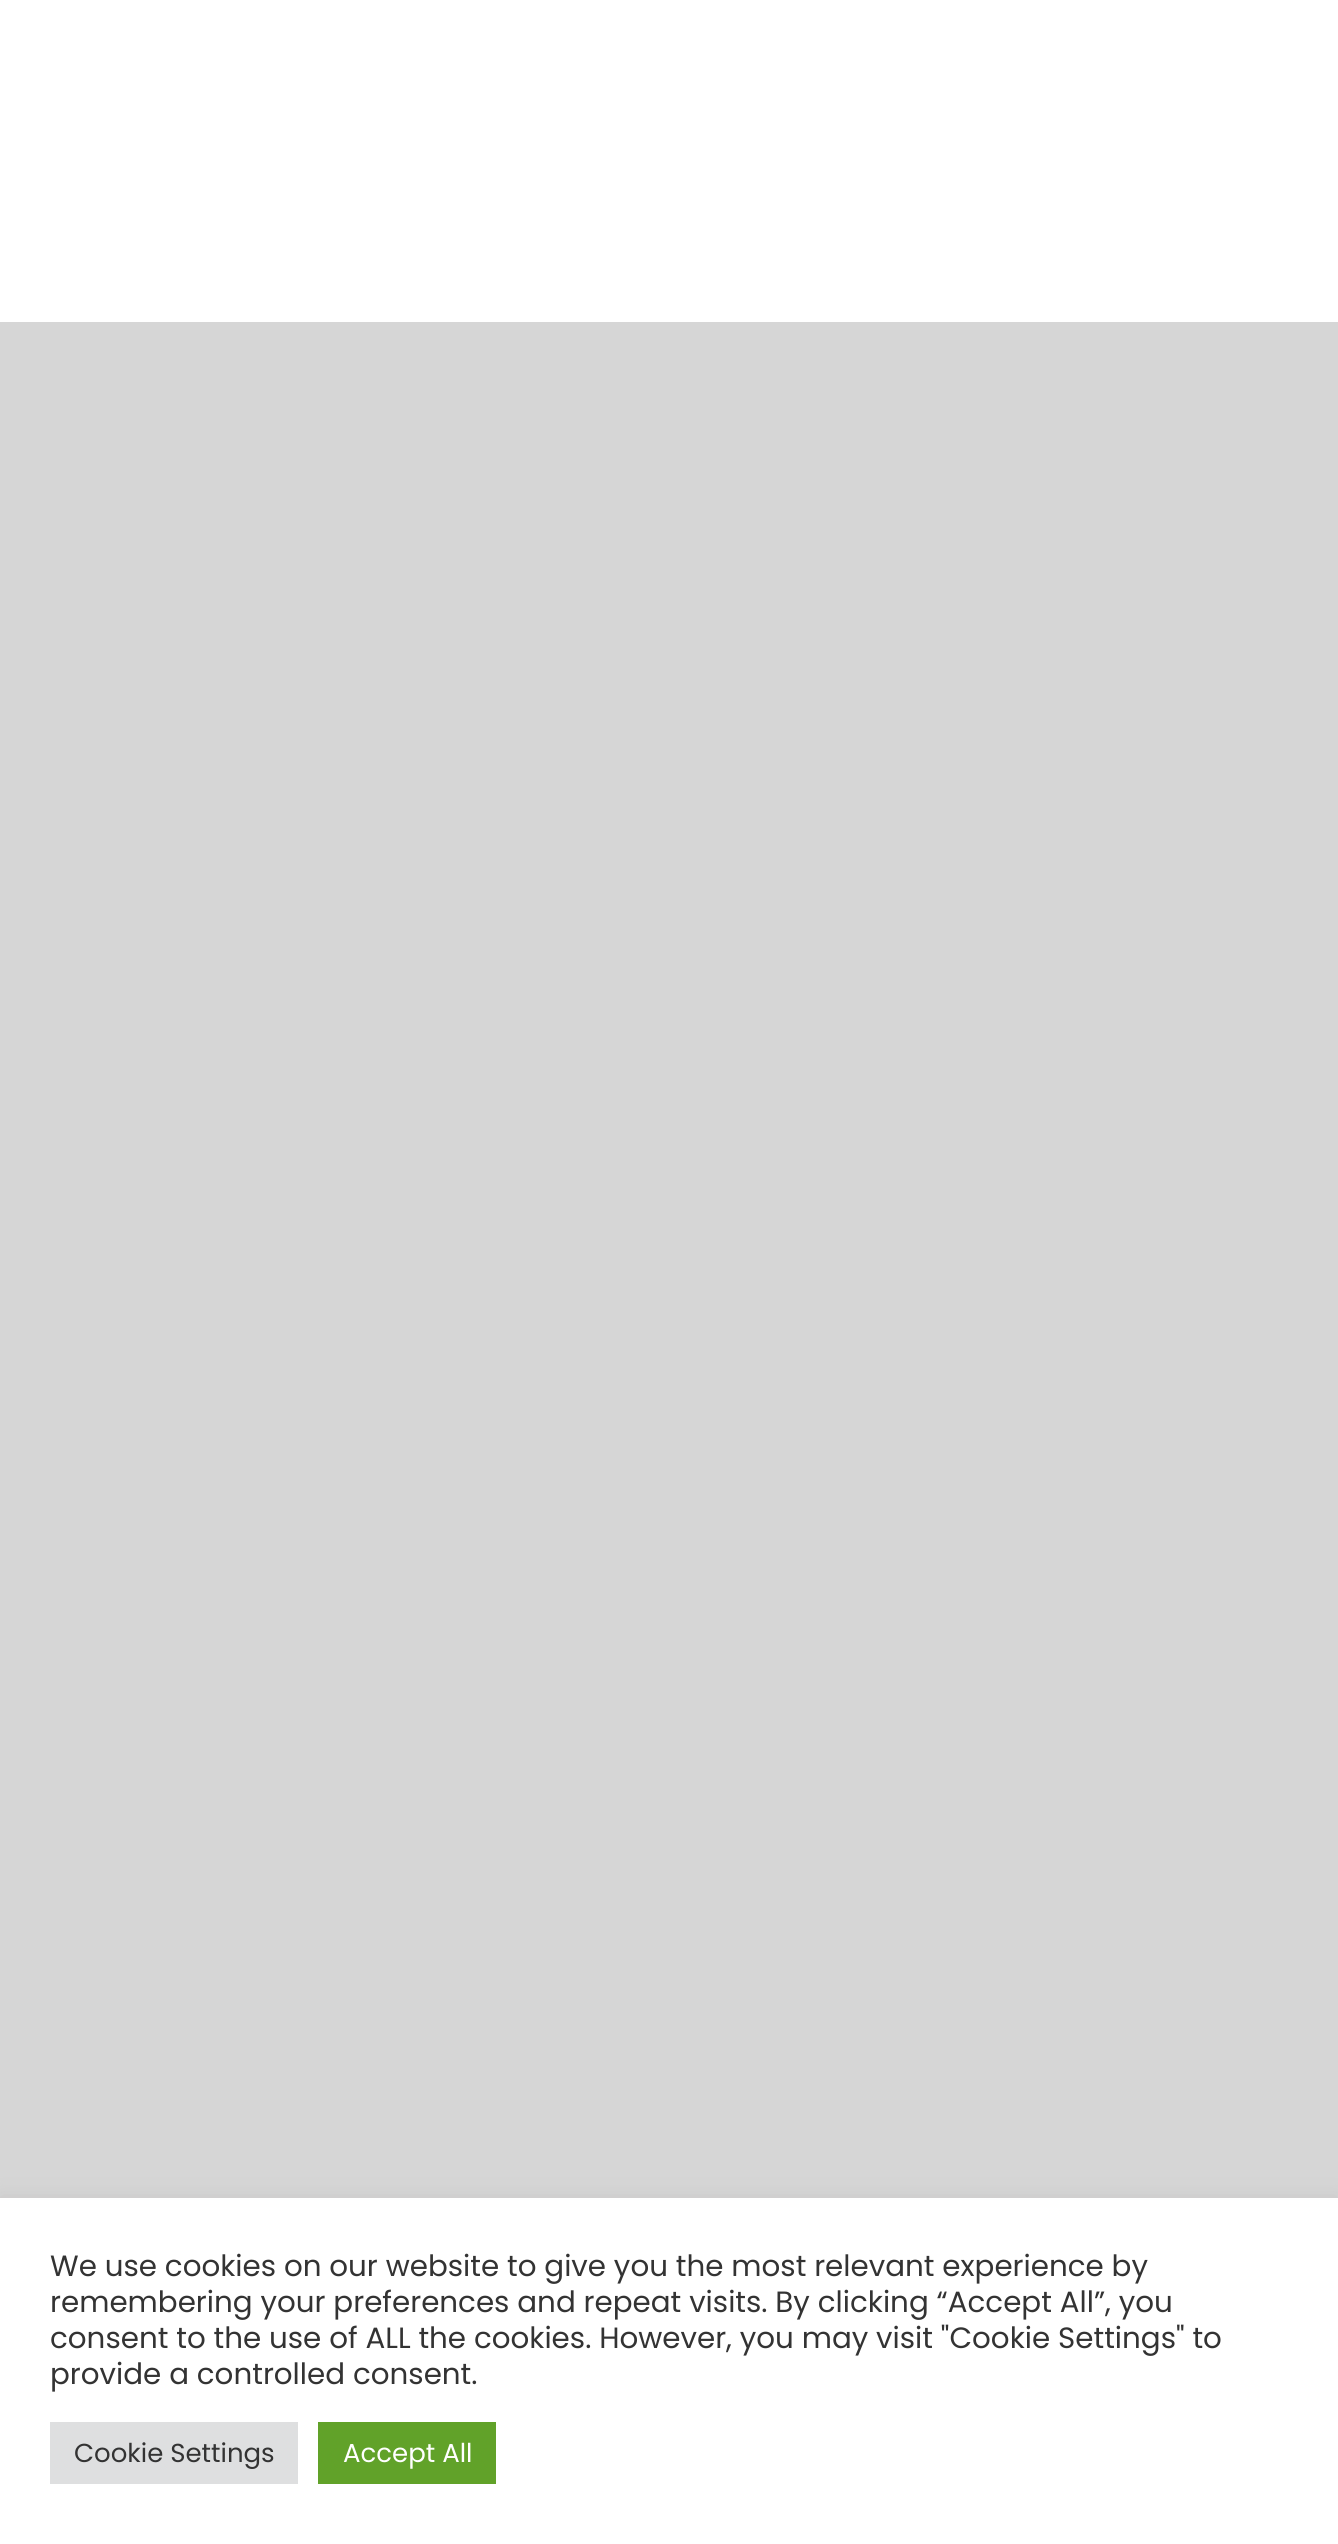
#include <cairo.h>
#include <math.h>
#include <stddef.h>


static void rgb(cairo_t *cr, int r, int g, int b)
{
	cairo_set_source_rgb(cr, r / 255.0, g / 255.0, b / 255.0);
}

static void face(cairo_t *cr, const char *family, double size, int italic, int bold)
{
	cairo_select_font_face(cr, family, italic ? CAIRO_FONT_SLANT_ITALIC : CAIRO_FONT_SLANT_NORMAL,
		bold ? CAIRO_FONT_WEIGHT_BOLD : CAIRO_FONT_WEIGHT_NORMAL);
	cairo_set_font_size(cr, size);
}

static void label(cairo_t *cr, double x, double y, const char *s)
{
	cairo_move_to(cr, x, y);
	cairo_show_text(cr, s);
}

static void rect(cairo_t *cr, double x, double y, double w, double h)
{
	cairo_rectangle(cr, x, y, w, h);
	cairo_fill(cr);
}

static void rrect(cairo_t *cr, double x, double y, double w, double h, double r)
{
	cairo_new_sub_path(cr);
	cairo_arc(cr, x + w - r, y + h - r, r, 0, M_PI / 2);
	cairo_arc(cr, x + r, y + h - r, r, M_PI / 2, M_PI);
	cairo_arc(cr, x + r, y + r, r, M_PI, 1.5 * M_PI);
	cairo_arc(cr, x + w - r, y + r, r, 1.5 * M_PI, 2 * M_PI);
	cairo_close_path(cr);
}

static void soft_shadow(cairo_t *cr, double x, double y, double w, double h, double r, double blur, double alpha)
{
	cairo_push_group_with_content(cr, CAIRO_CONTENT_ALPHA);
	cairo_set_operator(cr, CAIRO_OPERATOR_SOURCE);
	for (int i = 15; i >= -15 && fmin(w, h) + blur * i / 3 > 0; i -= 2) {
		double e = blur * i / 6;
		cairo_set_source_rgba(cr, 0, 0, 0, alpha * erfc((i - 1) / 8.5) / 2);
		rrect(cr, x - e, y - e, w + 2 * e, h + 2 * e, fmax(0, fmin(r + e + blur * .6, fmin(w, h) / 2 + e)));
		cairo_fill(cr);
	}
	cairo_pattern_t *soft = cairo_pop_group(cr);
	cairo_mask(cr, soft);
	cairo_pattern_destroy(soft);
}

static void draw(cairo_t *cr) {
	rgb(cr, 255, 255, 255);
	cairo_paint(cr);
	rgb(cr, 214, 214, 214);
	rect(cr, 0, 322, 1338, 1876);
	rgb(cr, 172, 171, 171);
	soft_shadow(cr, 0, 2196, 1338, 346, 0, 10, 0.3);
	rgb(cr, 255, 255, 255);
	rect(cr, 0, 2198, 1338, 346);
	face(cr, "Poppins", 29.35, 0, 0);
	rgb(cr, 51, 51, 51);
	label(cr, 50, 2276, "We use cookies on our website to give you the most relevant experience by");
	label(cr, 50, 2312, "remembering your preferences and repeat visits. By clicking “Accept All”, you");
	label(cr, 50, 2348, "consent to the use of ALL the cookies. However, you may visit \"Cookie Settings\" to");
	label(cr, 50, 2384, "provide a controlled consent.");
	rgb(cr, 222, 223, 224);
	rect(cr, 50, 2422, 248, 62);
	face(cr, "Poppins", 26, 0, 0);
	rgb(cr, 51, 51, 51);
	label(cr, 74, 2462, "Cookie Settings");
	rgb(cr, 97, 162, 41);
	rect(cr, 318, 2422, 178, 62);
	rgb(cr, 255, 255, 255);
	label(cr, 343, 2462, "Accept All");
}

int main(void) {
	cairo_surface_t *surface = cairo_image_surface_create(CAIRO_FORMAT_RGB24, 1338, 2544);
	cairo_t *cr = cairo_create(surface);
	cairo_font_options_t *options = cairo_font_options_create();
	cairo_font_options_set_hint_metrics(options, CAIRO_HINT_METRICS_OFF);
	cairo_font_options_set_hint_style(options, CAIRO_HINT_STYLE_NONE);
	cairo_set_font_options(cr, options);
	cairo_set_miter_limit(cr, 4);
	draw(cr);
	cairo_surface_write_to_png(surface, "render.png");
	cairo_font_options_destroy(options);
	cairo_destroy(cr);
	cairo_surface_destroy(surface);
	return 0;
}
